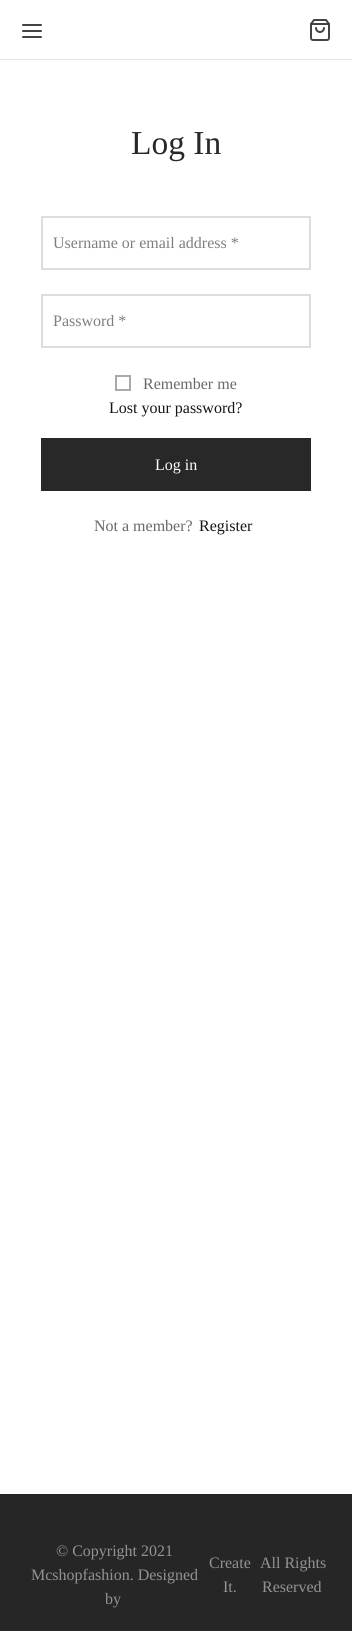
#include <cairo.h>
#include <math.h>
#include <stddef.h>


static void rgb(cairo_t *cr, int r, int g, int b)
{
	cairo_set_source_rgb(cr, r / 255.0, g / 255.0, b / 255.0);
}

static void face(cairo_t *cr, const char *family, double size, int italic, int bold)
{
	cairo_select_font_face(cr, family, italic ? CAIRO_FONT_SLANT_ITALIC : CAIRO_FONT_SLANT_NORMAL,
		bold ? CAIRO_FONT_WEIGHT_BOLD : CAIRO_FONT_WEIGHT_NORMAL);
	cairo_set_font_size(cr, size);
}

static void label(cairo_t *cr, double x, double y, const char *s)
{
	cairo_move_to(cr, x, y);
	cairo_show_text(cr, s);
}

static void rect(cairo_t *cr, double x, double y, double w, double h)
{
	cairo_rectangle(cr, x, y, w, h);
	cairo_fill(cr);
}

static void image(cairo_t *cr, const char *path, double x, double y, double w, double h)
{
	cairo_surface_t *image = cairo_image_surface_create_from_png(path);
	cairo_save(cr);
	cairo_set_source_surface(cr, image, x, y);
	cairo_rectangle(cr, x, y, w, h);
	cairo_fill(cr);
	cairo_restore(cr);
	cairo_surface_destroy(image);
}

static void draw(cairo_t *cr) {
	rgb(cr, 255, 255, 255);
	cairo_paint(cr);
	cairo_new_path(cr);
	cairo_move_to(cr, 23, 31);
	cairo_line_to(cr, 41, 31);
	cairo_move_to(cr, 23, 25);
	cairo_line_to(cr, 41, 25);
	cairo_move_to(cr, 23, 37);
	cairo_line_to(cr, 41, 37);
	rgb(cr, 68, 68, 68);
	cairo_set_line_cap(cr, CAIRO_LINE_CAP_ROUND);
	cairo_set_line_join(cr, CAIRO_LINE_JOIN_ROUND);
	cairo_stroke(cr);
	image(cr, "image0.png", 310, 19, 20, 22);
	rgb(cr, 230, 230, 230);
	rect(cr, 0, 59, 352, 1);
	face(cr, "Liberation Serif", 33.5, 0, 0);
	rgb(cr, 40, 40, 40);
	label(cr, 131, 154, "Log In");
	cairo_rectangle(cr, 42, 217, 268, 52);
	rgb(cr, 221, 221, 221);
	cairo_set_line_cap(cr, CAIRO_LINE_CAP_BUTT);
	cairo_set_line_join(cr, CAIRO_LINE_JOIN_MITER);
	cairo_stroke(cr);
	face(cr, "Liberation Serif", 16, 0, 0);
	rgb(cr, 126, 126, 126);
	label(cr, 53, 248, "Username or email address *");
	cairo_rectangle(cr, 42, 295, 268, 52);
	rgb(cr, 221, 221, 221);
	cairo_stroke(cr);
	rgb(cr, 126, 126, 126);
	label(cr, 53, 326, "Password *");
	cairo_rectangle(cr, 116, 376, 14, 14);
	rgb(cr, 170, 170, 170);
	cairo_stroke(cr);
	rgb(cr, 104, 104, 104);
	label(cr, 143, 389, "Remember me");
	rgb(cr, 21, 21, 21);
	label(cr, 109, 413, "Lost your password?");
	rgb(cr, 40, 40, 40);
	rect(cr, 41, 438, 270, 53);
	rgb(cr, 255, 255, 255);
	label(cr, 155, 470, "Log in");
	rgb(cr, 104, 104, 104);
	label(cr, 94, 531, "Not a member?");
	rgb(cr, 21, 21, 21);
	label(cr, 199, 531, "Register");
	rgb(cr, 38, 38, 38);
	rect(cr, 0, 1495, 352, 136);
	rgb(cr, 34, 34, 34);
	rect(cr, 0, 1494, 352, 1);
	rgb(cr, 147, 147, 147);
	label(cr, 56, 1556, "© Copyright 2021");
	label(cr, 31, 1580, "Mcshopfashion. Designed");
	label(cr, 209, 1568, "Create");
	label(cr, 223, 1592, "It.");
	label(cr, 260, 1568, "All Rights");
	label(cr, 262, 1592, "Reserved");
	label(cr, 105, 1604, "by");
}

int main(void) {
	cairo_surface_t *surface = cairo_image_surface_create(CAIRO_FORMAT_RGB24, 352, 1631);
	cairo_t *cr = cairo_create(surface);
	cairo_font_options_t *options = cairo_font_options_create();
	cairo_font_options_set_hint_metrics(options, CAIRO_HINT_METRICS_OFF);
	cairo_font_options_set_hint_style(options, CAIRO_HINT_STYLE_NONE);
	cairo_set_font_options(cr, options);
	cairo_set_miter_limit(cr, 4);
	draw(cr);
	cairo_surface_write_to_png(surface, "render.png");
	cairo_font_options_destroy(options);
	cairo_destroy(cr);
	cairo_surface_destroy(surface);
	return 0;
}
